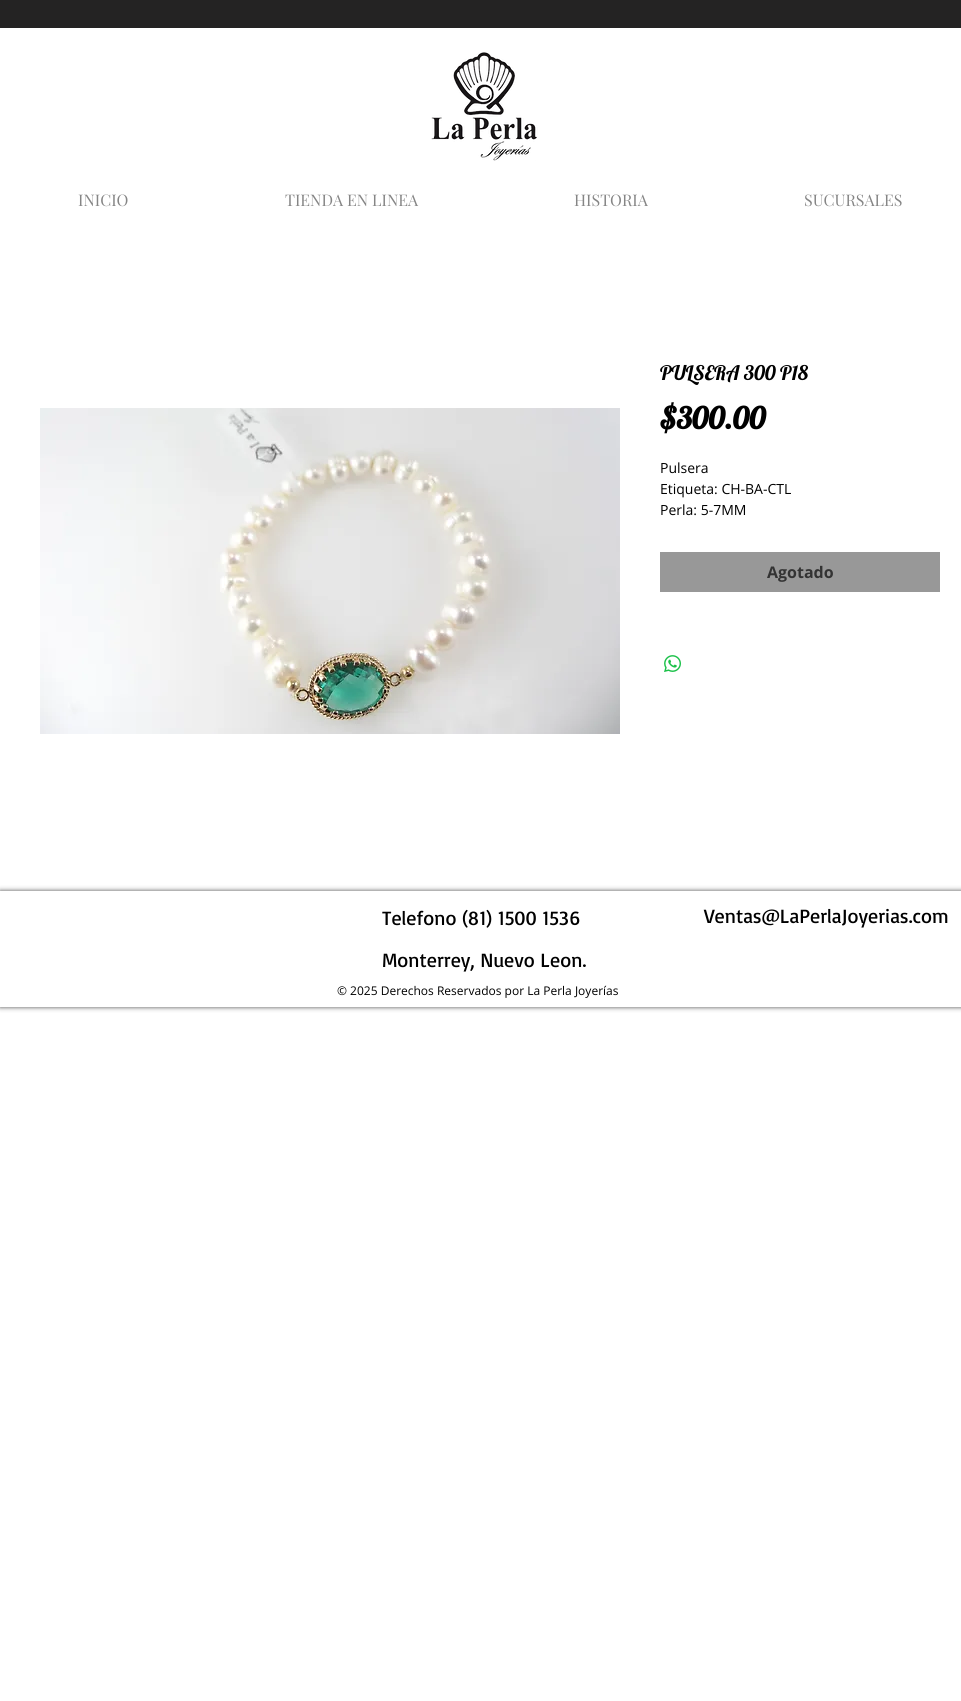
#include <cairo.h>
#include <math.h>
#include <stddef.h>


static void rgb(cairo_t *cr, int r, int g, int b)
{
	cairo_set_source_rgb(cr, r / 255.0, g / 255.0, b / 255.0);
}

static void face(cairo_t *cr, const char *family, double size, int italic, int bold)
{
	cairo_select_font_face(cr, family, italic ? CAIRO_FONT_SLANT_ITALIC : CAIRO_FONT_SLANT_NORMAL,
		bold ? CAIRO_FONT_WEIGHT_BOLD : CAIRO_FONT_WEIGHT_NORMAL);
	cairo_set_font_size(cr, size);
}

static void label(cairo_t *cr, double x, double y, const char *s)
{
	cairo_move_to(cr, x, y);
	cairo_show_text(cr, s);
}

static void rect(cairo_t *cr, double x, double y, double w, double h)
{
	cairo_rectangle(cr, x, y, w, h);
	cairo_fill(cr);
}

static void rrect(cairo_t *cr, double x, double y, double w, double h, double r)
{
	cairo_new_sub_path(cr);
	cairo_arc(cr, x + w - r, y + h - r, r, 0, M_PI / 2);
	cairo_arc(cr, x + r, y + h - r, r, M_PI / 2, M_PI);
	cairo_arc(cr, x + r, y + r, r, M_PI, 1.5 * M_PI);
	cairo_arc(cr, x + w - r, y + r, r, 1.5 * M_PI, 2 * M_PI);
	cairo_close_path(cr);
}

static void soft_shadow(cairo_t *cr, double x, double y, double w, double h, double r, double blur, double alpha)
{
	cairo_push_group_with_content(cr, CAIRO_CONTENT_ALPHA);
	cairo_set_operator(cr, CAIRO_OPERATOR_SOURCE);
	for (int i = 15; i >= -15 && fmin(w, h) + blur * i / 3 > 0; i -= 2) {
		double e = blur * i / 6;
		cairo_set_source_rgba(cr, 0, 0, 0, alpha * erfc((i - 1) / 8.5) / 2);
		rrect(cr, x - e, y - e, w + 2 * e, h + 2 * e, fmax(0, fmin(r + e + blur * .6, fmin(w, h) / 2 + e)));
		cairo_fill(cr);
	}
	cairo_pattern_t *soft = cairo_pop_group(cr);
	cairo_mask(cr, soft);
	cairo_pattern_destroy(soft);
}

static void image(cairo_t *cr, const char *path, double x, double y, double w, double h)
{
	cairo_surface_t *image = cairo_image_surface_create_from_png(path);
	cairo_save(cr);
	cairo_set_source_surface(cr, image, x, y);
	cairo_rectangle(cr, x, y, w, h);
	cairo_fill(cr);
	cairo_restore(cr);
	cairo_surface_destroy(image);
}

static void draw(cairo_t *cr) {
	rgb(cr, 255, 255, 255);
	cairo_paint(cr);
	rgb(cr, 36, 35, 35);
	rect(cr, 0, 0, 961, 28);
	image(cr, "image0.png", 431, 52, 107, 109);
	face(cr, "Playfair Display", 16, 0, 0);
	rgb(cr, 133, 133, 133);
	label(cr, 78, 206, "INICIO");
	label(cr, 285, 206, "TIENDA EN LINEA");
	label(cr, 574, 206, "HISTORIA");
	label(cr, 804, 206, "SUCURSALES");
	image(cr, "image1.png", 40, 408, 580, 326);
	face(cr, "Lobster", 20, 0, 0);
	rgb(cr, 0, 0, 0);
	label(cr, 660, 380, "PULSERA 300 P18");
	face(cr, "Lobster", 30, 0, 1);
	label(cr, 660, 429, "$300.00");
	face(cr, "Open Sans", 14, 0, 0);
	label(cr, 660, 473, "Pulsera");
	label(cr, 660, 494, "Etiqueta: CH-BA-CTL");
	label(cr, 660, 515, "Perla: 5-7MM");
	rgb(cr, 152, 152, 152);
	rect(cr, 660, 552, 280, 40);
	face(cr, "Open Sans", 16, 0, 1);
	rgb(cr, 51, 51, 51);
	label(cr, 767, 578, "Agotado");
	image(cr, "image2.png", 664, 655, 17, 17);
	cairo_save(cr);
	cairo_set_fill_rule(cr, CAIRO_FILL_RULE_EVEN_ODD);
	cairo_new_path(cr);
	cairo_move_to(cr, 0, 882);
	cairo_line_to(cr, 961, 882);
	cairo_line_to(cr, 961, 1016);
	cairo_line_to(cr, 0, 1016);
	cairo_close_path(cr);
	cairo_move_to(cr, 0, 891);
	cairo_line_to(cr, 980, 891);
	cairo_line_to(cr, 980, 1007);
	cairo_line_to(cr, 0, 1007);
	cairo_close_path(cr);
	cairo_clip(cr);
	rgb(cr, 0, 0, 0);
	soft_shadow(cr, 0, 891, 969, 116, 0, 2.5, 0.7);
	cairo_restore(cr);
	face(cr, "Basic", 20, 0, 0);
	rgb(cr, 0, 0, 0);
	label(cr, 382, 925, "Telefono (81) 1500 1536");
	label(cr, 704, 923, "Ventas@LaPerlaJoyerias.com");
	label(cr, 382, 967, "Monterrey, Nuevo Leon.");
	face(cr, "Open Sans", 12, 0, 0);
	label(cr, 337, 995, "© 2025 Derechos Reservados por La Perla Joyerías");
}

int main(void) {
	cairo_surface_t *surface = cairo_image_surface_create(CAIRO_FORMAT_RGB24, 961, 1701);
	cairo_t *cr = cairo_create(surface);
	cairo_font_options_t *options = cairo_font_options_create();
	cairo_font_options_set_hint_metrics(options, CAIRO_HINT_METRICS_OFF);
	cairo_font_options_set_hint_style(options, CAIRO_HINT_STYLE_NONE);
	cairo_set_font_options(cr, options);
	cairo_set_miter_limit(cr, 4);
	draw(cr);
	cairo_surface_write_to_png(surface, "render.png");
	cairo_font_options_destroy(options);
	cairo_destroy(cr);
	cairo_surface_destroy(surface);
	return 0;
}
